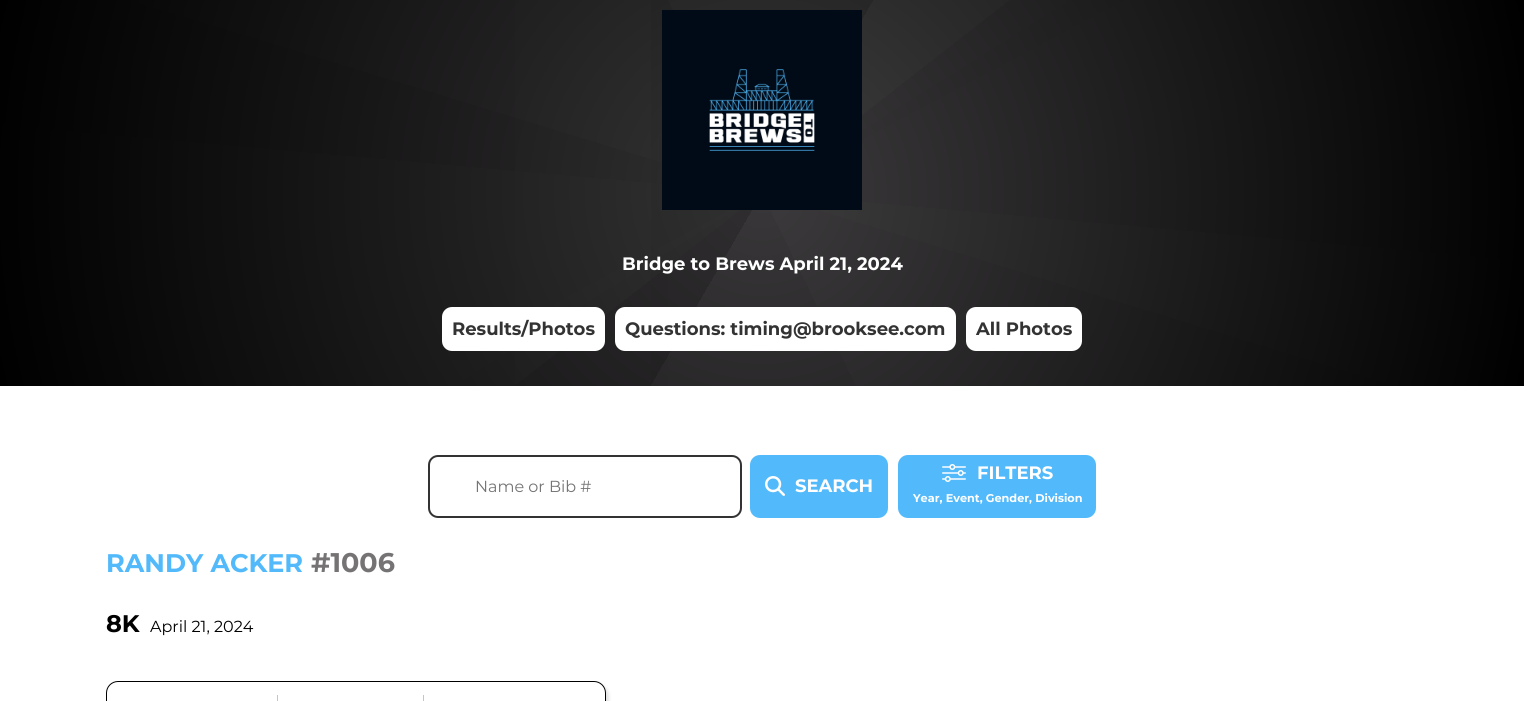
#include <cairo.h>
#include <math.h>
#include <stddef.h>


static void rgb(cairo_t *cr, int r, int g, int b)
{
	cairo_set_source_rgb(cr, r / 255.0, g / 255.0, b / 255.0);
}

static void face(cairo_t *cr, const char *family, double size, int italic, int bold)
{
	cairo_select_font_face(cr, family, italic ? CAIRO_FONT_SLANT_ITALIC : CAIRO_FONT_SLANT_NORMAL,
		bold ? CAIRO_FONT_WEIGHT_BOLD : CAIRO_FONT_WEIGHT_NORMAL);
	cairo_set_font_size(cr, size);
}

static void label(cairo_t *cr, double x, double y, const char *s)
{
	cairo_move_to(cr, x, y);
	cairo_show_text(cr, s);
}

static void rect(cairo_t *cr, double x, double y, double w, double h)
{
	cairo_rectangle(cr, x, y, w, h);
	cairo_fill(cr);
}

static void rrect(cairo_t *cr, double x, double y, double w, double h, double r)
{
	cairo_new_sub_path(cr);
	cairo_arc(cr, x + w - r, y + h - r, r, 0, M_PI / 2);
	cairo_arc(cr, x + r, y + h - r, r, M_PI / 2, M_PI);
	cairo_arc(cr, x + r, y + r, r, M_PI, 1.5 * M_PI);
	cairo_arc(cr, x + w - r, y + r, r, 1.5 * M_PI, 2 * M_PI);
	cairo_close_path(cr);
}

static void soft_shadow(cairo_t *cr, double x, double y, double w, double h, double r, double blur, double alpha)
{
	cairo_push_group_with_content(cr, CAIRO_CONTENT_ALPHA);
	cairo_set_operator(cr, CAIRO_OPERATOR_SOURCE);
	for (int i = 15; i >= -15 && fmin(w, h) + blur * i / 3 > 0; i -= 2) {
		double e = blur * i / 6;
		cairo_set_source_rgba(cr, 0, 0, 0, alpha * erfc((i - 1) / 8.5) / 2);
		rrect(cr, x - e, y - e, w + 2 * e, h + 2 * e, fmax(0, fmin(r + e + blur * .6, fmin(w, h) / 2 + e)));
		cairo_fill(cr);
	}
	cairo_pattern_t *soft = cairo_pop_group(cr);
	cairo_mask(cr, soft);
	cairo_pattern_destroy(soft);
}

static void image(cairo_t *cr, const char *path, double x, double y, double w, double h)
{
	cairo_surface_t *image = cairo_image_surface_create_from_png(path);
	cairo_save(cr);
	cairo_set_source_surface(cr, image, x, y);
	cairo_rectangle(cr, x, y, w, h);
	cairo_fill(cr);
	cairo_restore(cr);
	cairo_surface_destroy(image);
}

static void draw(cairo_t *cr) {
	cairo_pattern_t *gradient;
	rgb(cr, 255, 255, 255);
	cairo_paint(cr);
	gradient = cairo_pattern_create_linear(739, 451, 785, -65);
	cairo_pattern_add_color_stop_rgba(gradient, 0, 0.098, 0.09, 0.098, 1);
	cairo_pattern_add_color_stop_rgba(gradient, 0.5, 0.098, 0.09, 0.098, 1);
	cairo_pattern_add_color_stop_rgba(gradient, 0.5, 0.086, 0.078, 0.086, 1);
	cairo_pattern_add_color_stop_rgba(gradient, 1, 0.086, 0.078, 0.086, 1);
	cairo_set_source(cr, gradient);
	cairo_pattern_destroy(gradient);
	rect(cr, 0, 0, 1524, 386);
	gradient = cairo_pattern_create_linear(663, 564, 861, -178);
	cairo_pattern_add_color_stop_rgba(gradient, 0, 0.882, 0.882, 0.882, 0.05);
	cairo_pattern_add_color_stop_rgba(gradient, 0.5, 0.882, 0.882, 0.882, 0.05);
	cairo_pattern_add_color_stop_rgba(gradient, 0.5, 0.894, 0.894, 0.894, 0.05);
	cairo_pattern_add_color_stop_rgba(gradient, 1, 0.894, 0.894, 0.894, 0.05);
	cairo_set_source(cr, gradient);
	cairo_pattern_destroy(gradient);
	rect(cr, 0, 0, 1524, 386);
	gradient = cairo_pattern_create_linear(380, -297, 1144, 683);
	cairo_pattern_add_color_stop_rgba(gradient, 0, 0.659, 0.659, 0.659, 0.05);
	cairo_pattern_add_color_stop_rgba(gradient, 0.5, 0.659, 0.659, 0.659, 0.05);
	cairo_pattern_add_color_stop_rgba(gradient, 0.5, 0.125, 0.125, 0.125, 0.05);
	cairo_pattern_add_color_stop_rgba(gradient, 1, 0.125, 0.125, 0.125, 0.05);
	cairo_set_source(cr, gradient);
	cairo_pattern_destroy(gradient);
	rect(cr, 0, 0, 1009, 386);
	gradient = cairo_pattern_create_linear(461, -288, 1063, 674);
	cairo_pattern_add_color_stop_rgba(gradient, 0, 0.929, 0.929, 0.929, 0.05);
	cairo_pattern_add_color_stop_rgba(gradient, 0.5, 0.929, 0.929, 0.929, 0.05);
	cairo_pattern_add_color_stop_rgba(gradient, 0.5, 0.827, 0.827, 0.827, 0.05);
	cairo_pattern_add_color_stop_rgba(gradient, 1, 0.827, 0.827, 0.827, 0.05);
	cairo_set_source(cr, gradient);
	cairo_pattern_destroy(gradient);
	rect(cr, 0, 0, 1524, 386);
	gradient = cairo_pattern_create_linear(1010, 659, 514, -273);
	cairo_pattern_add_color_stop_rgba(gradient, 0, 0.38, 0.38, 0.38, 0.05);
	cairo_pattern_add_color_stop_rgba(gradient, 0.5, 0.38, 0.38, 0.38, 0.05);
	cairo_pattern_add_color_stop_rgba(gradient, 0.5, 0.333, 0.333, 0.333, 0.05);
	cairo_pattern_add_color_stop_rgba(gradient, 1, 0.333, 0.333, 0.333, 0.05);
	cairo_set_source(cr, gradient);
	cairo_pattern_destroy(gradient);
	rect(cr, 515, 0, 1009, 386);
	gradient = cairo_pattern_create_linear(643, 583, 881, -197);
	cairo_pattern_add_color_stop_rgba(gradient, 0, 0.224, 0.224, 0.224, 0.05);
	cairo_pattern_add_color_stop_rgba(gradient, 0.5, 0.224, 0.224, 0.224, 0.05);
	cairo_pattern_add_color_stop_rgba(gradient, 0.5, 0.502, 0.502, 0.502, 0.05);
	cairo_pattern_add_color_stop_rgba(gradient, 1, 0.502, 0.502, 0.502, 0.05);
	cairo_set_source(cr, gradient);
	cairo_pattern_destroy(gradient);
	rect(cr, 131, 0, 1393, 386);
	gradient = cairo_pattern_create_linear(70, 530, 1454, -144);
	cairo_pattern_add_color_stop_rgba(gradient, 0, 0.212, 0.212, 0.212, 0.05);
	cairo_pattern_add_color_stop_rgba(gradient, 0.5, 0.212, 0.212, 0.212, 0.05);
	cairo_pattern_add_color_stop_rgba(gradient, 0.5, 0.518, 0.518, 0.518, 0.05);
	cairo_pattern_add_color_stop_rgba(gradient, 1, 0.518, 0.518, 0.518, 0.05);
	cairo_set_source(cr, gradient);
	cairo_pattern_destroy(gradient);
	rect(cr, 668, 0, 856, 386);
	gradient = cairo_pattern_create_linear(1417, 571, 107, -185);
	cairo_pattern_add_color_stop_rgba(gradient, 0, 0.776, 0.776, 0.776, 0.05);
	cairo_pattern_add_color_stop_rgba(gradient, 0.5, 0.776, 0.776, 0.776, 0.05);
	cairo_pattern_add_color_stop_rgba(gradient, 0.5, 0.043, 0.043, 0.043, 0.05);
	cairo_pattern_add_color_stop_rgba(gradient, 1, 0.043, 0.043, 0.043, 0.05);
	cairo_set_source(cr, gradient);
	cairo_pattern_destroy(gradient);
	rect(cr, 651, 0, 873, 386);
	gradient = cairo_pattern_create_radial(762, 193, 0, 762, 193, 786);
	cairo_pattern_add_color_stop_rgba(gradient, 0, 0, 0, 0, 0);
	cairo_pattern_add_color_stop_rgba(gradient, 1, 0, 0, 0, 1);
	cairo_set_source(cr, gradient);
	cairo_pattern_destroy(gradient);
	rect(cr, 0, 0, 1524, 386);
	image(cr, "image0.png", 662, 10, 200, 200);
	face(cr, "Montserrat", 18, 0, 1);
	rgb(cr, 255, 255, 255);
	label(cr, 622, 270, "Bridge to Brews April 21, 2024");
	rrect(cr, 442, 307, 163, 44, 10);
	cairo_fill(cr);
	rgb(cr, 51, 51, 51);
	label(cr, 452, 335, "Results/Photos");
	rgb(cr, 255, 255, 255);
	rrect(cr, 615, 307, 341, 44, 10);
	cairo_fill(cr);
	rgb(cr, 51, 51, 51);
	label(cr, 625, 335, "Questions: timing@brooksee.com");
	rgb(cr, 255, 255, 255);
	rrect(cr, 966, 307, 116, 44, 10);
	cairo_fill(cr);
	rgb(cr, 51, 51, 51);
	label(cr, 976, 335, "All Photos");
	rrect(cr, 429, 456, 312, 61, 9);
	cairo_stroke(cr);
	face(cr, "Montserrat", 16, 0, 0);
	rgb(cr, 117, 115, 115);
	label(cr, 475, 492, "Name or Bib #");
	rgb(cr, 82, 185, 251);
	rrect(cr, 750, 455, 138, 63, 10);
	cairo_fill(cr);
	image(cr, "image1.png", 765, 476, 20, 20);
	face(cr, "Montserrat", 18, 0, 1);
	rgb(cr, 255, 255, 255);
	label(cr, 795, 492, "SEARCH");
	rgb(cr, 82, 185, 251);
	rrect(cr, 898, 455, 198, 63, 10);
	cairo_fill(cr);
	image(cr, "image2.png", 942, 464, 24, 18);
	rgb(cr, 255, 255, 255);
	label(cr, 977, 479, "FILTERS");
	face(cr, "Montserrat", 11.25, 0, 1);
	label(cr, 913, 502, "Year, Event, Gender, Division");
	face(cr, "Montserrat", 25.5, 0, 1);
	rgb(cr, 82, 185, 251);
	label(cr, 106, 572, "RANDY ACKER");
	face(cr, "Montserrat", 27, 0, 1);
	rgb(cr, 117, 115, 115);
	label(cr, 311, 572, "#1006");
	face(cr, "Montserrat", 24, 0, 1);
	rgb(cr, 0, 0, 0);
	label(cr, 106, 632, "8K");
	face(cr, "Montserrat", 16, 0, 0);
	label(cr, 150, 632, "April 21, 2024");
	cairo_save(cr);
	cairo_set_fill_rule(cr, CAIRO_FILL_RULE_EVEN_ODD);
	cairo_new_path(cr);
	cairo_move_to(cr, 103, 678);
	cairo_line_to(cr, 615, 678);
	cairo_line_to(cr, 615, 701);
	cairo_line_to(cr, 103, 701);
	cairo_close_path(cr);
	cairo_move_to(cr, 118, 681);
	cairo_line_to(cr, 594, 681);
	cairo_curve_to(cr, 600.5, 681, 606, 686.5, 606, 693);
	cairo_line_to(cr, 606, 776);
	cairo_curve_to(cr, 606, 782.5, 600.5, 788, 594, 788);
	cairo_line_to(cr, 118, 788);
	cairo_curve_to(cr, 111.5, 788, 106, 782.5, 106, 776);
	cairo_line_to(cr, 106, 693);
	cairo_curve_to(cr, 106, 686.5, 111.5, 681, 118, 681);
	cairo_close_path(cr);
	cairo_clip(cr);
	rgb(cr, 227, 226, 226);
	soft_shadow(cr, 109, 684, 500, 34, 12, 1.5, 1);
	cairo_restore(cr);
	rrect(cr, 106.5, 681.5, 499, 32, 11.5);
	cairo_set_line_width(cr, 1);
	cairo_stroke(cr);
	rgb(cr, 197, 197, 197);
	rect(cr, 277, 695, 1, 6);
	rect(cr, 423, 695, 1, 6);
}

int main(void) {
	cairo_surface_t *surface = cairo_image_surface_create(CAIRO_FORMAT_RGB24, 1524, 701);
	cairo_t *cr = cairo_create(surface);
	cairo_font_options_t *options = cairo_font_options_create();
	cairo_font_options_set_hint_metrics(options, CAIRO_HINT_METRICS_OFF);
	cairo_font_options_set_hint_style(options, CAIRO_HINT_STYLE_NONE);
	cairo_set_font_options(cr, options);
	cairo_set_miter_limit(cr, 4);
	draw(cr);
	cairo_surface_write_to_png(surface, "render.png");
	cairo_font_options_destroy(options);
	cairo_destroy(cr);
	cairo_surface_destroy(surface);
	return 0;
}
